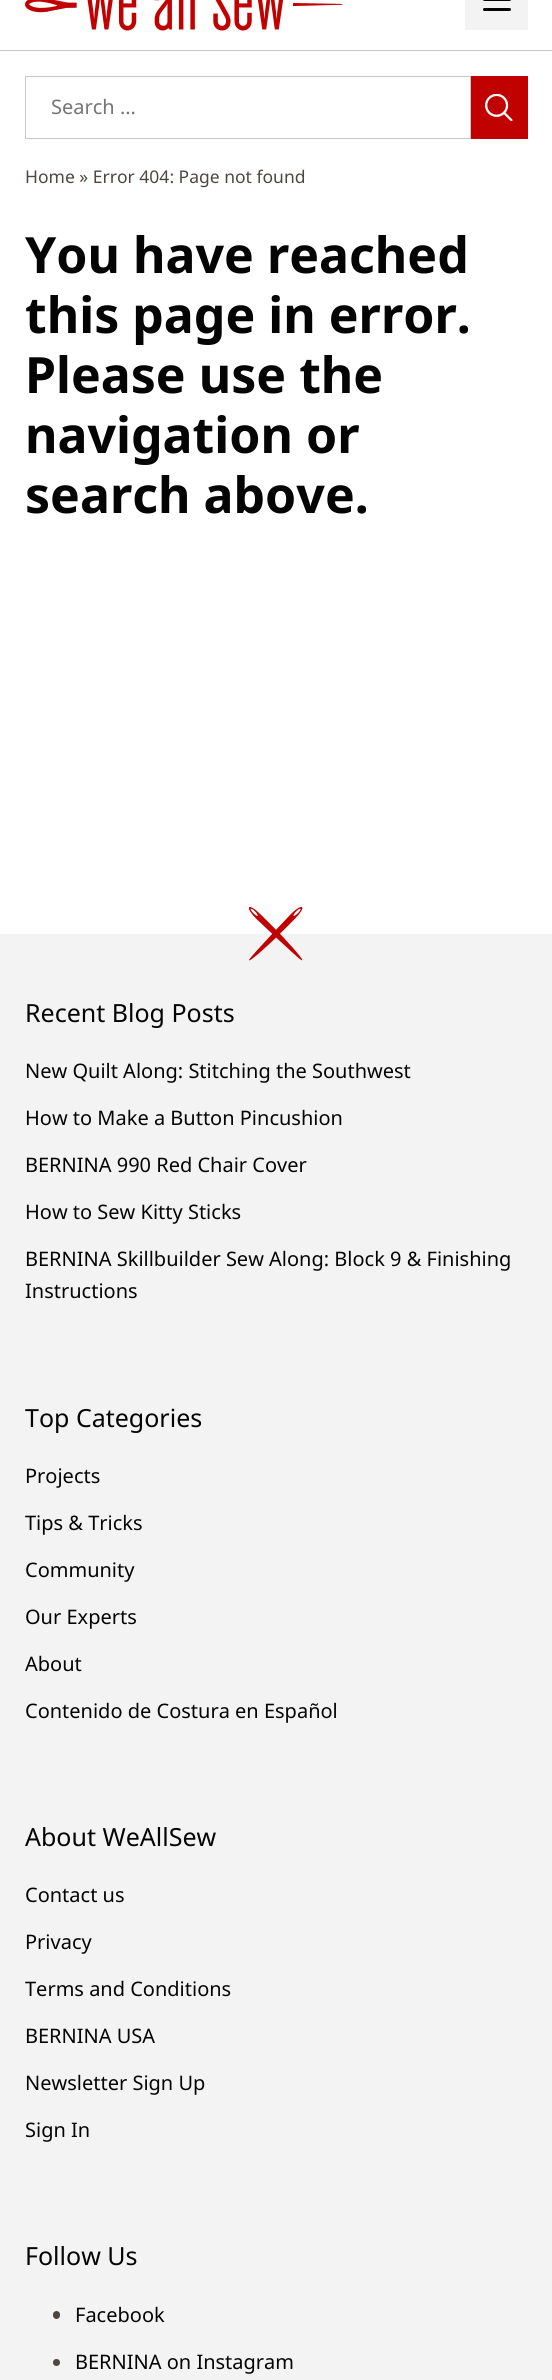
#include <cairo.h>
#include <math.h>
#include <stddef.h>


static void rgb(cairo_t *cr, int r, int g, int b)
{
	cairo_set_source_rgb(cr, r / 255.0, g / 255.0, b / 255.0);
}

static void face(cairo_t *cr, const char *family, double size, int italic, int bold)
{
	cairo_select_font_face(cr, family, italic ? CAIRO_FONT_SLANT_ITALIC : CAIRO_FONT_SLANT_NORMAL,
		bold ? CAIRO_FONT_WEIGHT_BOLD : CAIRO_FONT_WEIGHT_NORMAL);
	cairo_set_font_size(cr, size);
}

static void label(cairo_t *cr, double x, double y, const char *s)
{
	cairo_move_to(cr, x, y);
	cairo_show_text(cr, s);
}

static void rect(cairo_t *cr, double x, double y, double w, double h)
{
	cairo_rectangle(cr, x, y, w, h);
	cairo_fill(cr);
}

static void rrect(cairo_t *cr, double x, double y, double w, double h, double r)
{
	cairo_new_sub_path(cr);
	cairo_arc(cr, x + w - r, y + h - r, r, 0, M_PI / 2);
	cairo_arc(cr, x + r, y + h - r, r, M_PI / 2, M_PI);
	cairo_arc(cr, x + r, y + r, r, M_PI, 1.5 * M_PI);
	cairo_arc(cr, x + w - r, y + r, r, 1.5 * M_PI, 2 * M_PI);
	cairo_close_path(cr);
}

static void image(cairo_t *cr, const char *path, double x, double y, double w, double h)
{
	cairo_surface_t *image = cairo_image_surface_create_from_png(path);
	cairo_save(cr);
	cairo_set_source_surface(cr, image, x, y);
	cairo_rectangle(cr, x, y, w, h);
	cairo_fill(cr);
	cairo_restore(cr);
	cairo_surface_destroy(image);
}

static void draw(cairo_t *cr) {
	rgb(cr, 255, 255, 255);
	cairo_paint(cr);
	rgb(cr, 199, 199, 199);
	rect(cr, 0, 50, 552, 1);
	image(cr, "image0.png", 25, 0, 318, 31);
	rgb(cr, 244, 243, 243);
	rect(cr, 465, 0, 63, 30);
	rgb(cr, 4, 4, 4);
	rrect(cr, 483, -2, 28, 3, 1.5);
	cairo_fill(cr);
	rrect(cr, 483, 8, 28, 3, 1.5);
	cairo_fill(cr);
	cairo_rectangle(cr, 25.5, 76.5, 445, 62);
	rgb(cr, 199, 199, 199);
	cairo_set_line_width(cr, 1);
	cairo_stroke(cr);
	face(cr, "Noto Sans", 20, 0, 0);
	rgb(cr, 117, 117, 117);
	label(cr, 51, 114, "Search …");
	rgb(cr, 193, 0, 0);
	rect(cr, 471, 76, 57, 63);
	image(cr, "image1.png", 485, 94, 28, 27);
	face(cr, "Noto Sans", 17.5, 0, 0);
	rgb(cr, 78, 70, 68);
	label(cr, 25, 183, "Home » Error 404: Page not found");
	face(cr, "Noto Sans", 50, 0, 1);
	rgb(cr, 4, 4, 4);
	label(cr, 25, 273, "You have reached");
	label(cr, 25, 333, "this page in error.");
	label(cr, 25, 393, "Please use the");
	label(cr, 25, 453, "navigation or");
	label(cr, 25, 513, "search above.");
	rgb(cr, 244, 243, 243);
	rect(cr, 0, 934, 552, 1446);
	image(cr, "image2.png", 249, 906, 54, 55);
	face(cr, "Noto Sans", 25, 0, 0);
	rgb(cr, 4, 4, 4);
	label(cr, 25, 1022, "Recent Blog Posts");
	face(cr, "Noto Sans", 20, 0, 0);
	label(cr, 25, 1078, "New Quilt Along: Stitching the Southwest");
	label(cr, 25, 1125, "How to Make a Button Pincushion");
	label(cr, 25, 1172, "BERNINA 990 Red Chair Cover");
	label(cr, 25, 1219, "How to Sew Kitty Sticks");
	label(cr, 25, 1266, "BERNINA Skillbuilder Sew Along: Block 9 & Finishing");
	label(cr, 25, 1298, "Instructions");
	face(cr, "Noto Sans", 25, 0, 0);
	label(cr, 25, 1427, "Top Categories");
	face(cr, "Noto Sans", 20, 0, 0);
	label(cr, 25, 1483, "Projects");
	label(cr, 25, 1530, "Tips & Tricks");
	label(cr, 25, 1577, "Community");
	label(cr, 25, 1624, "Our Experts");
	label(cr, 25, 1671, "About");
	label(cr, 25, 1718, "Contenido de Costura en Español");
	face(cr, "Noto Sans", 25, 0, 0);
	label(cr, 25, 1846, "About WeAllSew");
	face(cr, "Noto Sans", 20, 0, 0);
	label(cr, 25, 1902, "Contact us");
	label(cr, 25, 1949, "Privacy");
	label(cr, 25, 1996, "Terms and Conditions");
	label(cr, 25, 2043, "BERNINA USA");
	label(cr, 25, 2090, "Newsletter Sign Up");
	label(cr, 25, 2137, "Sign In");
	face(cr, "Noto Sans", 25, 0, 0);
	label(cr, 25, 2265, "Follow Us");
	rgb(cr, 78, 70, 68);
	rrect(cr, 53, 2311, 7, 8, 3.5);
	cairo_fill(cr);
	face(cr, "Noto Sans", 20, 0, 0);
	rgb(cr, 4, 4, 4);
	label(cr, 75, 2322, "Facebook");
	rgb(cr, 78, 70, 68);
	cairo_new_path(cr);
	cairo_arc(cr, 56.5, 2362.5, 3.5, 0, 2 * M_PI);
	cairo_fill(cr);
	rgb(cr, 4, 4, 4);
	label(cr, 75, 2369, "BERNINA on Instagram");
}

int main(void) {
	cairo_surface_t *surface = cairo_image_surface_create(CAIRO_FORMAT_RGB24, 552, 2380);
	cairo_t *cr = cairo_create(surface);
	cairo_font_options_t *options = cairo_font_options_create();
	cairo_font_options_set_hint_metrics(options, CAIRO_HINT_METRICS_OFF);
	cairo_font_options_set_hint_style(options, CAIRO_HINT_STYLE_NONE);
	cairo_set_font_options(cr, options);
	cairo_set_miter_limit(cr, 4);
	draw(cr);
	cairo_surface_write_to_png(surface, "render.png");
	cairo_font_options_destroy(options);
	cairo_destroy(cr);
	cairo_surface_destroy(surface);
	return 0;
}
